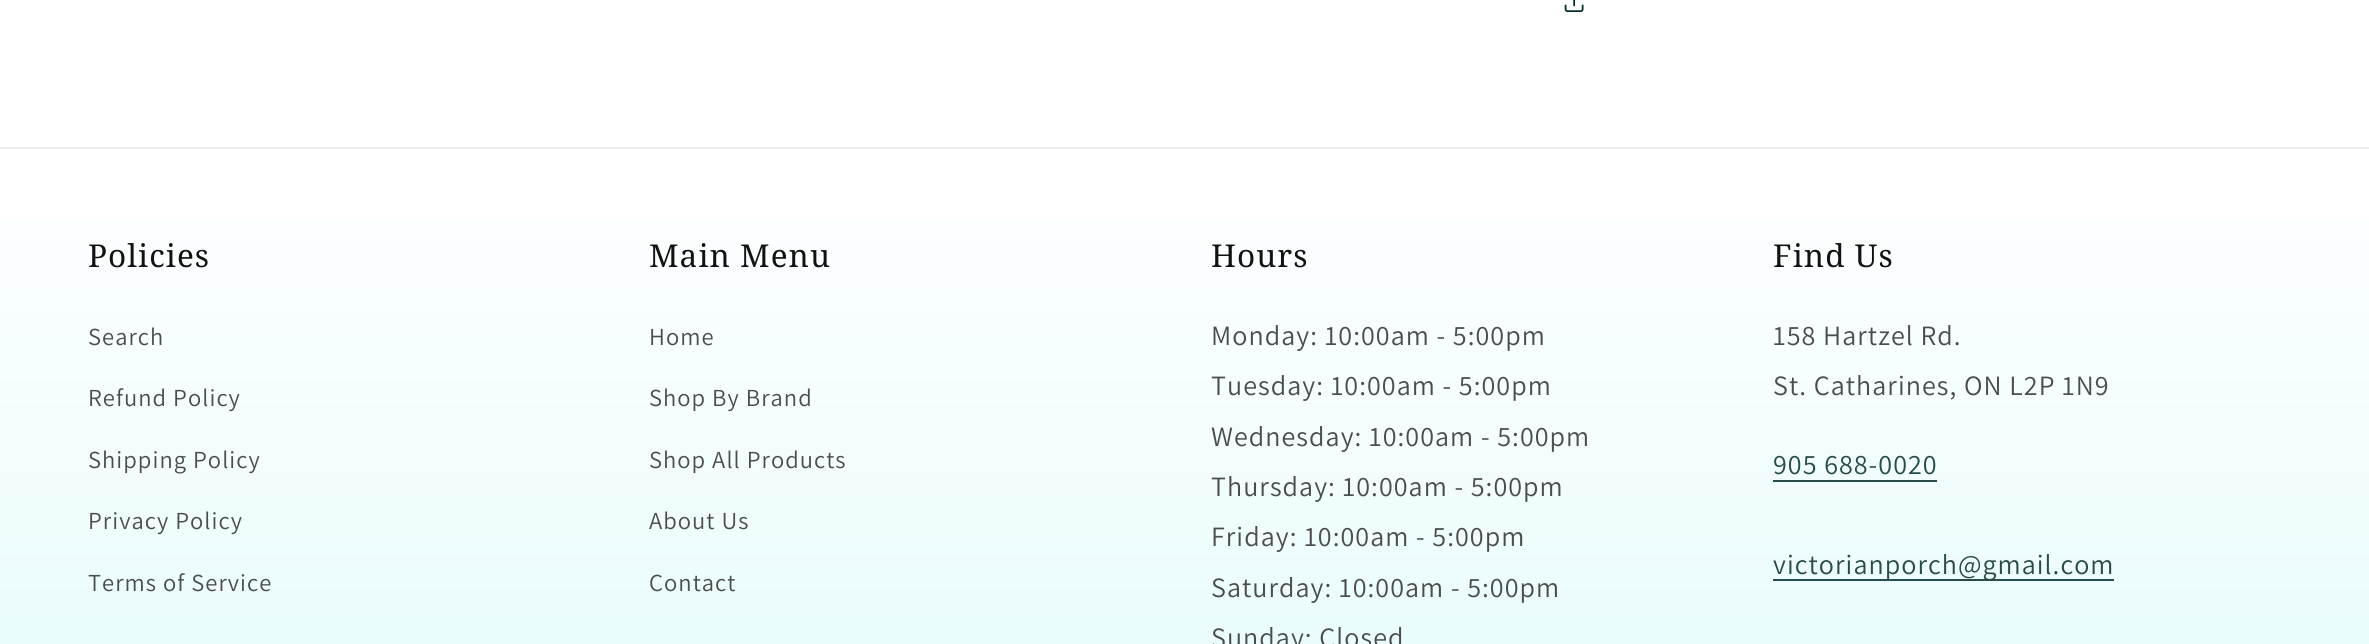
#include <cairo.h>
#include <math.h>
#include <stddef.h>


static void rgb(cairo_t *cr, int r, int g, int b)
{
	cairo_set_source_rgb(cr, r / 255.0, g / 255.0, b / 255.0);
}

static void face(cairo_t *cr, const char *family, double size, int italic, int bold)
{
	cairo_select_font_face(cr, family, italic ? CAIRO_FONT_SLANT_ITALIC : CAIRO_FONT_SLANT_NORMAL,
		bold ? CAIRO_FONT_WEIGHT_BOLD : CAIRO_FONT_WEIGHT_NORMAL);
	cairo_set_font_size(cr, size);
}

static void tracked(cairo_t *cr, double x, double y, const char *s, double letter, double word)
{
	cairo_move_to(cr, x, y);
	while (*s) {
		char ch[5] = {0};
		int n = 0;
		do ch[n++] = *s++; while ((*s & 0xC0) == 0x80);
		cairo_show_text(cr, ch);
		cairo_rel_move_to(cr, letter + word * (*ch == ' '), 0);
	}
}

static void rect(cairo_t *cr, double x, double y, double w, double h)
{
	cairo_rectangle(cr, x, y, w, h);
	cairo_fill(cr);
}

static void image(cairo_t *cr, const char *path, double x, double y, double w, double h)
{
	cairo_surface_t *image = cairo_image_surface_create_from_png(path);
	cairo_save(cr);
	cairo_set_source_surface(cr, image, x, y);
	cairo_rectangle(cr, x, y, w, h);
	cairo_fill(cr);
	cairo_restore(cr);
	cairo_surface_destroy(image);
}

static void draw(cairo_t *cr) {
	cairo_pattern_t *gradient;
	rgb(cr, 255, 255, 255);
	cairo_paint(cr);
	gradient = cairo_pattern_create_linear(1185, 0, 1185, 644);
	cairo_pattern_add_color_stop_rgba(gradient, 0.25, 1, 1, 1, 1);
	cairo_pattern_add_color_stop_rgba(gradient, 1, 0.918, 0.988, 0.988, 1);
	cairo_set_source(cr, gradient);
	cairo_pattern_destroy(gradient);
	rect(cr, 0, 219, 2369, 425);
	image(cr, "image0.png", 1564, 0, 20, 12);
	rgb(cr, 236, 236, 236);
	rect(cr, 0, 147, 2369, 2);
	face(cr, "Noto Serif", 31.5, 0, 0);
	rgb(cr, 18, 18, 18);
	tracked(cr, 88, 267, "Policies", 1.05, 0);
	face(cr, "Assistant", 24.5, 0, 0);
	rgb(cr, 75, 77, 77);
	tracked(cr, 88, 345, "Search", 1.05, 0);
	tracked(cr, 88, 406, "Refund Policy", 1.05, 0);
	tracked(cr, 88, 468, "Shipping Policy", 1.05, 0);
	tracked(cr, 88, 529, "Privacy Policy", 1.05, 0);
	tracked(cr, 88, 591, "Terms of Service", 1.05, 0);
	face(cr, "Noto Serif", 31.5, 0, 0);
	rgb(cr, 18, 18, 18);
	tracked(cr, 649, 267, "Main Menu", 1.05, 0);
	face(cr, "Assistant", 24.5, 0, 0);
	rgb(cr, 75, 77, 77);
	tracked(cr, 649, 345, "Home", 1.05, 0);
	tracked(cr, 649, 406, "Shop By Brand", 1.05, 0);
	tracked(cr, 649, 468, "Shop All Products", 1.05, 0);
	tracked(cr, 649, 529, "About Us", 1.05, 0);
	tracked(cr, 649, 591, "Contact", 1.05, 0);
	face(cr, "Noto Serif", 31.5, 0, 0);
	rgb(cr, 18, 18, 18);
	tracked(cr, 1211, 267, "Hours", 1.05, 0);
	face(cr, "Assistant", 28, 0, 0);
	rgb(cr, 75, 77, 77);
	tracked(cr, 1211, 345, "Monday: 10:00am - 5:00pm", 1.05, 0);
	tracked(cr, 1211, 395, "Tuesday: 10:00am - 5:00pm", 1.05, 0);
	tracked(cr, 1211, 446, "Wednesday: 10:00am - 5:00pm", 1.05, 0);
	tracked(cr, 1211, 496, "Thursday: 10:00am - 5:00pm", 1.05, 0);
	tracked(cr, 1211, 546, "Friday: 10:00am - 5:00pm", 1.05, 0);
	tracked(cr, 1211, 597, "Saturday: 10:00am - 5:00pm", 1.05, 0);
	tracked(cr, 1211, 647, "Sunday: Closed", 1.05, 0);
	face(cr, "Noto Serif", 31.5, 0, 0);
	rgb(cr, 18, 18, 18);
	tracked(cr, 1773, 267, "Find Us", 1.05, 0);
	face(cr, "Assistant", 28, 0, 0);
	rgb(cr, 75, 77, 77);
	tracked(cr, 1773, 345, "158 Hartzel Rd.", 1.05, 0);
	tracked(cr, 1773, 395, "St. Catharines, ON L2P 1N9", 1.05, 0);
	rgb(cr, 41, 75, 75);
	tracked(cr, 1773, 474, "905 688-0020", 1.05, 0);
	rect(cr, 1773, 480, 164, 2);
	rect(cr, 1773, 579, 341, 2);
	tracked(cr, 1773, 574, "victorianporch@gmail.com", 1.05, 0);
}

int main(void) {
	cairo_surface_t *surface = cairo_image_surface_create(CAIRO_FORMAT_RGB24, 2369, 644);
	cairo_t *cr = cairo_create(surface);
	cairo_font_options_t *options = cairo_font_options_create();
	cairo_font_options_set_hint_metrics(options, CAIRO_HINT_METRICS_OFF);
	cairo_font_options_set_hint_style(options, CAIRO_HINT_STYLE_NONE);
	cairo_set_font_options(cr, options);
	cairo_set_miter_limit(cr, 4);
	draw(cr);
	cairo_surface_write_to_png(surface, "render.png");
	cairo_font_options_destroy(options);
	cairo_destroy(cr);
	cairo_surface_destroy(surface);
	return 0;
}
